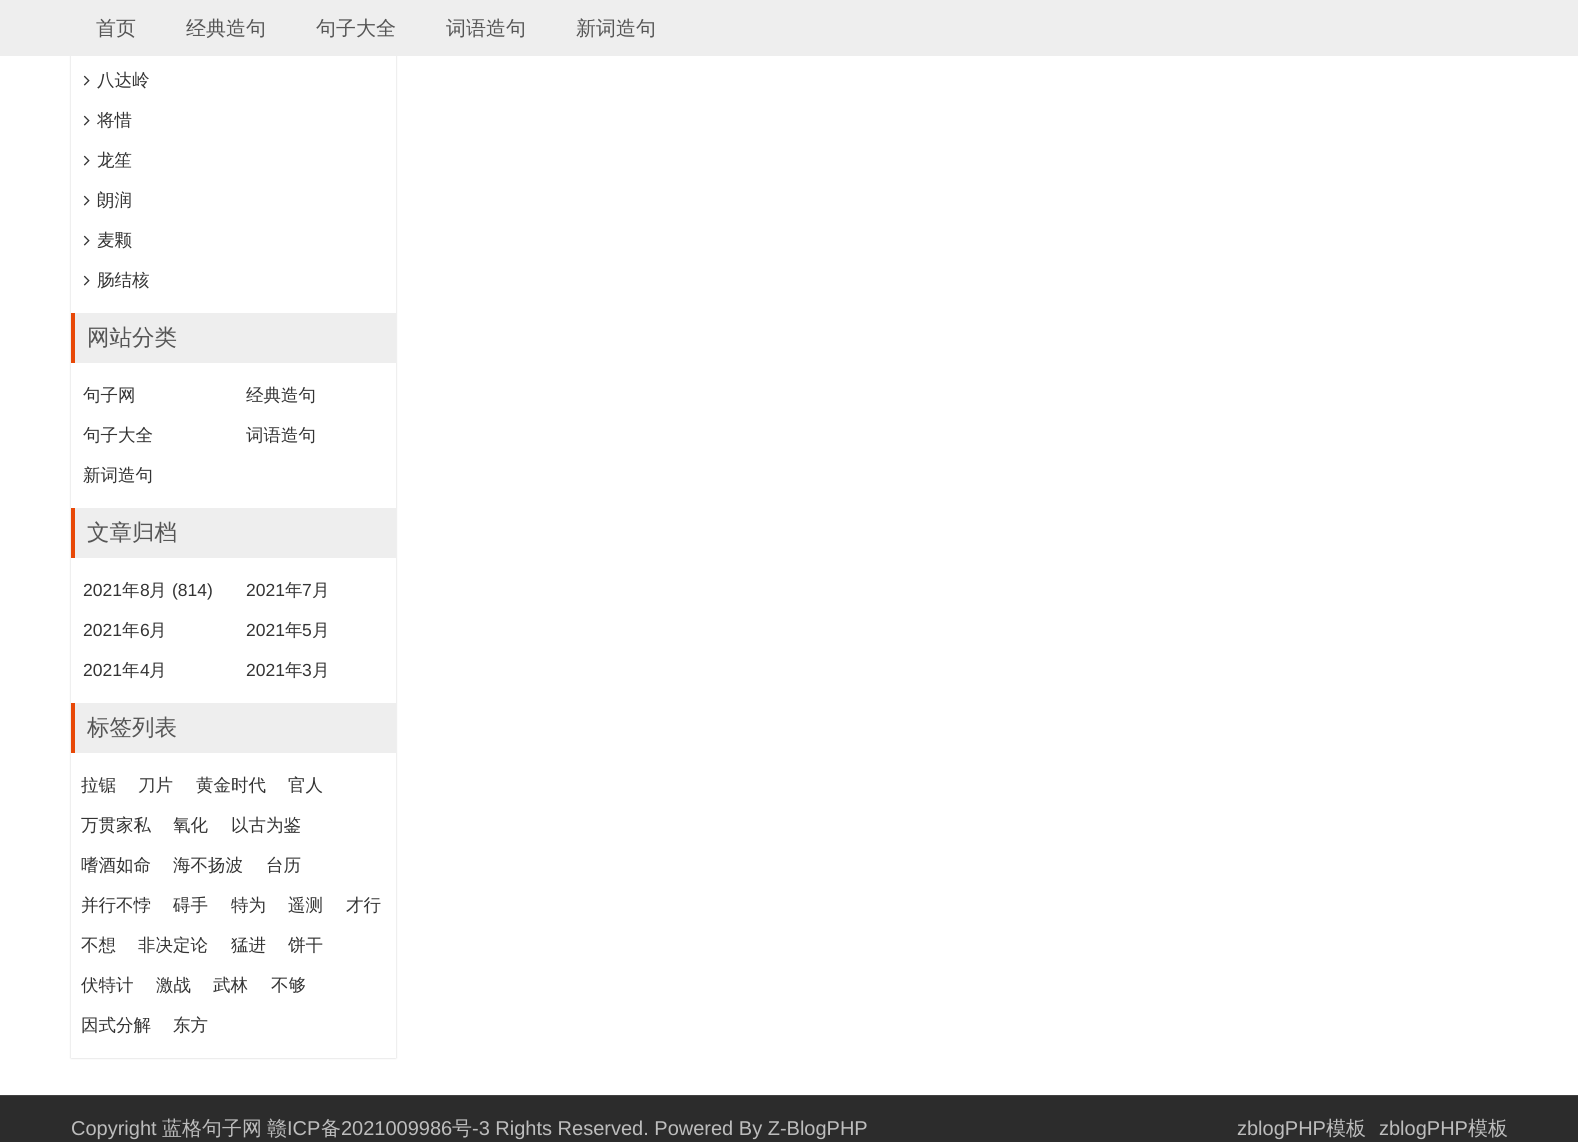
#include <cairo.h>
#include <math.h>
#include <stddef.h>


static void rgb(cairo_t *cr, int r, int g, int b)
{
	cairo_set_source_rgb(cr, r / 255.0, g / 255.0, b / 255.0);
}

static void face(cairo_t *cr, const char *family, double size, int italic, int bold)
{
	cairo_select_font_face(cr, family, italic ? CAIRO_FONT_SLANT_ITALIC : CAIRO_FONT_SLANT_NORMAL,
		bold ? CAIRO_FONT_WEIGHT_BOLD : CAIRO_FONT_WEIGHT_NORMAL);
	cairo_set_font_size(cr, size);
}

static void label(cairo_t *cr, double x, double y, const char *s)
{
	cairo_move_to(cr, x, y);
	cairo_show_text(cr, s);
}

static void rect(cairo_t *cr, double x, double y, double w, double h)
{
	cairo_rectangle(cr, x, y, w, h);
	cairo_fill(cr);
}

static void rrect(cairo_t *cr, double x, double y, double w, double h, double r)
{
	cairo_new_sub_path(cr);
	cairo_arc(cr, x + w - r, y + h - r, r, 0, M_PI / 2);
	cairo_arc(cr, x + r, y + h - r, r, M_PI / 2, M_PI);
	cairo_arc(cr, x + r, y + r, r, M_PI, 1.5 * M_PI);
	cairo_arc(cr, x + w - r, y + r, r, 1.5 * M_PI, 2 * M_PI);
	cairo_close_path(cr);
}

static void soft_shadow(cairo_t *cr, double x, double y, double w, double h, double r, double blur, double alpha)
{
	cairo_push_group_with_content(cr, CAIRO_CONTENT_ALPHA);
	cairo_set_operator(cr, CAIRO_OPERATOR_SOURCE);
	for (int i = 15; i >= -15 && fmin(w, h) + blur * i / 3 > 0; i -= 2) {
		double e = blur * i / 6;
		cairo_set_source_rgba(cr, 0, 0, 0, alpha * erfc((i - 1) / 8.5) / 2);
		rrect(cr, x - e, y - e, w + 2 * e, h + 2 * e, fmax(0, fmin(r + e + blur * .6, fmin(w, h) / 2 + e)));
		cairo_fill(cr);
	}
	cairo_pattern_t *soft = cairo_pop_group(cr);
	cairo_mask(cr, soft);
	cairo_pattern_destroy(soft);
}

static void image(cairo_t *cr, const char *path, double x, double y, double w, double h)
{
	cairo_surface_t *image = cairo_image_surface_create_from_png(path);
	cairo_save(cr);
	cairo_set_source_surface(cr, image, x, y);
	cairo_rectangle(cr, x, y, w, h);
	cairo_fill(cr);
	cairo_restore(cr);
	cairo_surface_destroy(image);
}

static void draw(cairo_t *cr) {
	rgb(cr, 255, 255, 255);
	cairo_paint(cr);
	cairo_save(cr);
	cairo_set_fill_rule(cr, CAIRO_FILL_RULE_EVEN_ODD);
	cairo_new_path(cr);
	cairo_move_to(cr, 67, 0);
	cairo_line_to(cr, 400, 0);
	cairo_line_to(cr, 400, 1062);
	cairo_line_to(cr, 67, 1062);
	cairo_close_path(cr);
	cairo_move_to(cr, 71, -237);
	cairo_line_to(cr, 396, -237);
	cairo_line_to(cr, 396, 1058);
	cairo_line_to(cr, 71, 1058);
	cairo_close_path(cr);
	cairo_clip(cr);
	rgb(cr, 0, 0, 0);
	soft_shadow(cr, 71, -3, 325, 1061, 0, 1, 0.2);
	cairo_restore(cr);
	rgb(cr, 238, 238, 238);
	rect(cr, 0, 0, 1578, 56);
	face(cr, "WenQuanYi Zen Hei Medium", 20, 0, 0);
	rgb(cr, 85, 85, 85);
	label(cr, 96, 35, "首页");
	label(cr, 186, 35, "经典造句");
	label(cr, 316, 35, "句子大全");
	label(cr, 446, 35, "词语造句");
	label(cr, 576, 35, "新词造句");
	image(cr, "image0.png", 83, 75, 7, 11);
	face(cr, "WenQuanYi Zen Hei Medium", 17.5, 0, 0);
	rgb(cr, 51, 51, 51);
	label(cr, 97, 86, "八达岭");
	image(cr, "image0.png", 83, 115, 7, 11);
	label(cr, 97, 126, "将惜");
	image(cr, "image0.png", 83, 155, 7, 11);
	label(cr, 97, 166, "龙笙");
	image(cr, "image0.png", 83, 195, 7, 11);
	label(cr, 97, 206, "朗润");
	image(cr, "image0.png", 83, 235, 7, 11);
	label(cr, 97, 246, "麦颗");
	image(cr, "image0.png", 83, 275, 7, 11);
	label(cr, 97, 286, "肠结核");
	rgb(cr, 238, 238, 238);
	rect(cr, 75, 313, 321, 50);
	rgb(cr, 232, 72, 7);
	rect(cr, 71, 313, 4, 50);
	face(cr, "WenQuanYi Zen Hei Medium", 22.5, 0, 0);
	rgb(cr, 85, 85, 85);
	label(cr, 87, 345, "网站分类");
	face(cr, "WenQuanYi Zen Hei Medium", 17.5, 0, 0);
	rgb(cr, 51, 51, 51);
	label(cr, 83, 401, "句子网");
	label(cr, 246, 401, "经典造句");
	label(cr, 83, 441, "句子大全");
	label(cr, 246, 441, "词语造句");
	label(cr, 83, 481, "新词造句");
	rgb(cr, 238, 238, 238);
	rect(cr, 75, 508, 321, 50);
	rgb(cr, 232, 72, 7);
	rect(cr, 71, 508, 4, 50);
	face(cr, "WenQuanYi Zen Hei Medium", 22.5, 0, 0);
	rgb(cr, 85, 85, 85);
	label(cr, 87, 540, "文章归档");
	face(cr, "Liberation Sans", 17.5, 0, 0);
	rgb(cr, 51, 51, 51);
	label(cr, 83, 596, "2021");
	face(cr, "WenQuanYi Zen Hei Medium", 17.5, 0, 0);
	label(cr, 122, 596, "年");
	face(cr, "Liberation Sans", 17.5, 0, 0);
	label(cr, 140, 596, "8");
	face(cr, "WenQuanYi Zen Hei Medium", 17.5, 0, 0);
	label(cr, 149, 596, "月");
	face(cr, "Liberation Sans", 17.5, 0, 0);
	label(cr, 172, 596, "(814)");
	label(cr, 246, 596, "2021");
	face(cr, "WenQuanYi Zen Hei Medium", 17.5, 0, 0);
	label(cr, 285, 596, "年");
	face(cr, "Liberation Sans", 17.5, 0, 0);
	label(cr, 302, 596, "7");
	face(cr, "WenQuanYi Zen Hei Medium", 17.5, 0, 0);
	label(cr, 312, 596, "月");
	face(cr, "Liberation Sans", 17.5, 0, 0);
	label(cr, 83, 636, "2021");
	face(cr, "WenQuanYi Zen Hei Medium", 17.5, 0, 0);
	label(cr, 122, 636, "年");
	face(cr, "Liberation Sans", 17.5, 0, 0);
	label(cr, 140, 636, "6");
	face(cr, "WenQuanYi Zen Hei Medium", 17.5, 0, 0);
	label(cr, 149, 636, "月");
	face(cr, "Liberation Sans", 17.5, 0, 0);
	label(cr, 246, 636, "2021");
	face(cr, "WenQuanYi Zen Hei Medium", 17.5, 0, 0);
	label(cr, 285, 636, "年");
	face(cr, "Liberation Sans", 17.5, 0, 0);
	label(cr, 302, 636, "5");
	face(cr, "WenQuanYi Zen Hei Medium", 17.5, 0, 0);
	label(cr, 312, 636, "月");
	face(cr, "Liberation Sans", 17.5, 0, 0);
	label(cr, 83, 676, "2021");
	face(cr, "WenQuanYi Zen Hei Medium", 17.5, 0, 0);
	label(cr, 122, 676, "年");
	face(cr, "Liberation Sans", 17.5, 0, 0);
	label(cr, 140, 676, "4");
	face(cr, "WenQuanYi Zen Hei Medium", 17.5, 0, 0);
	label(cr, 149, 676, "月");
	face(cr, "Liberation Sans", 17.5, 0, 0);
	label(cr, 246, 676, "2021");
	face(cr, "WenQuanYi Zen Hei Medium", 17.5, 0, 0);
	label(cr, 285, 676, "年");
	face(cr, "Liberation Sans", 17.5, 0, 0);
	label(cr, 302, 676, "3");
	face(cr, "WenQuanYi Zen Hei Medium", 17.5, 0, 0);
	label(cr, 312, 676, "月");
	rgb(cr, 238, 238, 238);
	rect(cr, 75, 703, 321, 50);
	rgb(cr, 232, 72, 7);
	rect(cr, 71, 703, 4, 50);
	face(cr, "WenQuanYi Zen Hei Medium", 22.5, 0, 0);
	rgb(cr, 85, 85, 85);
	label(cr, 87, 735, "标签列表");
	face(cr, "WenQuanYi Zen Hei Medium", 17.5, 0, 0);
	rgb(cr, 51, 51, 51);
	label(cr, 81, 791, "拉锯");
	label(cr, 138, 791, "刀片");
	label(cr, 196, 791, "黄金时代");
	label(cr, 288, 791, "官人");
	label(cr, 81, 831, "万贯家私");
	label(cr, 173, 831, "氧化");
	label(cr, 231, 831, "以古为鉴");
	label(cr, 81, 871, "嗜酒如命");
	label(cr, 173, 871, "海不扬波");
	label(cr, 266, 871, "台历");
	label(cr, 81, 911, "并行不悖");
	label(cr, 173, 911, "碍手");
	label(cr, 231, 911, "特为");
	label(cr, 288, 911, "遥测");
	label(cr, 346, 911, "才行");
	label(cr, 81, 951, "不想");
	label(cr, 138, 951, "非决定论");
	label(cr, 231, 951, "猛进");
	label(cr, 288, 951, "饼干");
	label(cr, 81, 991, "伏特计");
	label(cr, 156, 991, "激战");
	label(cr, 213, 991, "武林");
	label(cr, 271, 991, "不够");
	label(cr, 81, 1031, "因式分解");
	label(cr, 173, 1031, "东方");
	rgb(cr, 44, 44, 44);
	rect(cr, 0, 1096, 1578, 46);
	rgb(cr, 65, 65, 65);
	rect(cr, 0, 1095, 1578, 1);
	face(cr, "Liberation Sans", 20, 0, 0);
	rgb(cr, 189, 189, 189);
	label(cr, 71, 1135, "Copyright");
	face(cr, "WenQuanYi Zen Hei Medium", 20, 0, 0);
	label(cr, 162, 1135, "蓝格句子网");
	label(cr, 267, 1135, "赣");
	face(cr, "Liberation Sans", 20, 0, 0);
	label(cr, 287, 1135, "ICP");
	face(cr, "WenQuanYi Zen Hei Medium", 20, 0, 0);
	label(cr, 321, 1135, "备");
	face(cr, "Liberation Sans", 20, 0, 0);
	label(cr, 341, 1135, "2021009986");
	face(cr, "WenQuanYi Zen Hei Medium", 20, 0, 0);
	label(cr, 452, 1135, "号");
	face(cr, "Liberation Sans", 20, 0, 0);
	label(cr, 472, 1135, "-3 Rights Reserved. Powered By Z-BlogPHP");
	label(cr, 1237, 1135, "zblogPHP");
	face(cr, "WenQuanYi Zen Hei Medium", 20, 0, 0);
	label(cr, 1326, 1135, "模板");
	face(cr, "Liberation Sans", 20, 0, 0);
	label(cr, 1379, 1135, "zblogPHP");
	face(cr, "WenQuanYi Zen Hei Medium", 20, 0, 0);
	label(cr, 1468, 1135, "模板");
}

int main(void) {
	cairo_surface_t *surface = cairo_image_surface_create(CAIRO_FORMAT_RGB24, 1578, 1142);
	cairo_t *cr = cairo_create(surface);
	cairo_font_options_t *options = cairo_font_options_create();
	cairo_font_options_set_hint_metrics(options, CAIRO_HINT_METRICS_OFF);
	cairo_font_options_set_hint_style(options, CAIRO_HINT_STYLE_NONE);
	cairo_set_font_options(cr, options);
	cairo_set_miter_limit(cr, 4);
	draw(cr);
	cairo_surface_write_to_png(surface, "render.png");
	cairo_font_options_destroy(options);
	cairo_destroy(cr);
	cairo_surface_destroy(surface);
	return 0;
}
